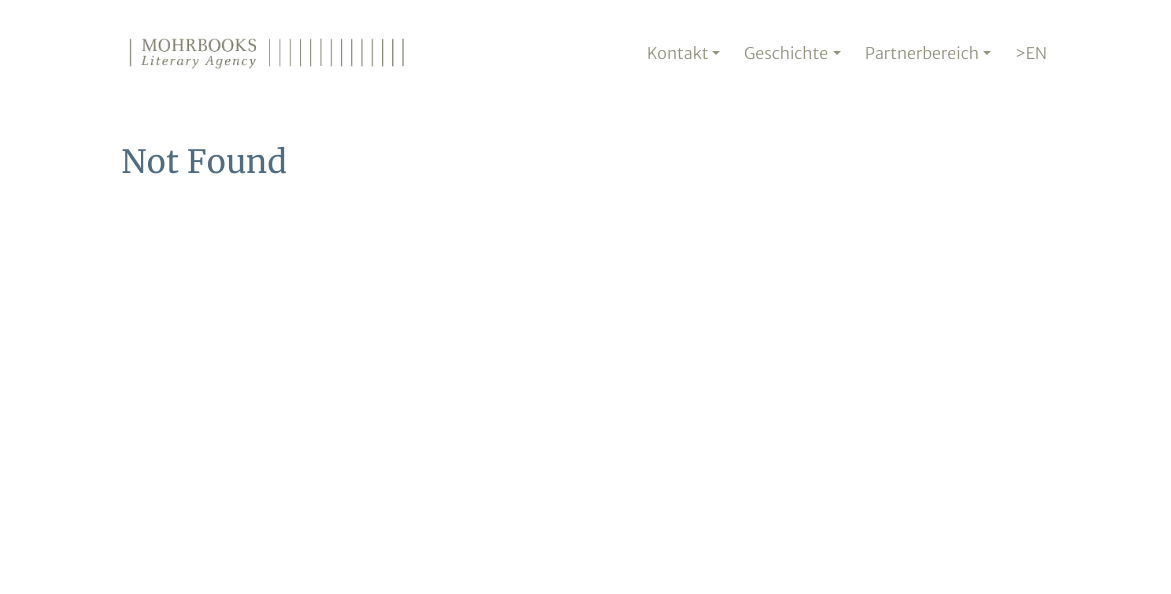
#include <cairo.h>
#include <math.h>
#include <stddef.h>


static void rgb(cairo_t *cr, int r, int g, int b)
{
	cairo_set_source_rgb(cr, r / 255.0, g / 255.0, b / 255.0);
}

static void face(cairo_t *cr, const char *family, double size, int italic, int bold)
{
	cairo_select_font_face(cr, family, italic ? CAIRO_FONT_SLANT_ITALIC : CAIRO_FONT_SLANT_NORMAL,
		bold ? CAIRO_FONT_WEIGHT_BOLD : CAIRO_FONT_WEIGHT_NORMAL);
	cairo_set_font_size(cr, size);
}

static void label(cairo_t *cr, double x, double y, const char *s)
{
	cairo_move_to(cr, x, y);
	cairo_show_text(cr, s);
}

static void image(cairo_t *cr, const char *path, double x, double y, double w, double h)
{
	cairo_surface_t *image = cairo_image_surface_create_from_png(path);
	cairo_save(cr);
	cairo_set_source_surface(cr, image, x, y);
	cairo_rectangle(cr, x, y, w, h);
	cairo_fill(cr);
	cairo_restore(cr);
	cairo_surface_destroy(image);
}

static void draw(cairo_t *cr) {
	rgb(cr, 255, 255, 255);
	cairo_paint(cr);
	image(cr, "image0.png", 129, 38, 275, 31);
	face(cr, "Merriweather Sans Light", 16, 0, 0);
	rgb(cr, 146, 146, 127);
	label(cr, 647, 59, "Kontakt");
	cairo_new_path(cr);
	cairo_move_to(cr, 712, 51);
	cairo_line_to(cr, 720, 51);
	cairo_line_to(cr, 716, 55);
	cairo_close_path(cr);
	cairo_fill(cr);
	label(cr, 744, 59, "Geschichte");
	cairo_new_path(cr);
	cairo_move_to(cr, 833, 51);
	cairo_line_to(cr, 841, 51);
	cairo_line_to(cr, 837, 55);
	cairo_close_path(cr);
	cairo_fill(cr);
	label(cr, 865, 59, "Partnerbereich");
	cairo_new_path(cr);
	cairo_move_to(cr, 983, 51);
	cairo_line_to(cr, 991, 51);
	cairo_line_to(cr, 987, 55);
	cairo_close_path(cr);
	cairo_fill(cr);
	label(cr, 1015, 59, ">EN");
	face(cr, "Merriweather", 32, 0, 0);
	rgb(cr, 80, 108, 131);
	label(cr, 121, 173, "Not Found");
}

int main(void) {
	cairo_surface_t *surface = cairo_image_surface_create(CAIRO_FORMAT_RGB24, 1171, 594);
	cairo_t *cr = cairo_create(surface);
	cairo_font_options_t *options = cairo_font_options_create();
	cairo_font_options_set_hint_metrics(options, CAIRO_HINT_METRICS_OFF);
	cairo_font_options_set_hint_style(options, CAIRO_HINT_STYLE_NONE);
	cairo_set_font_options(cr, options);
	cairo_set_miter_limit(cr, 4);
	draw(cr);
	cairo_surface_write_to_png(surface, "render.png");
	cairo_font_options_destroy(options);
	cairo_destroy(cr);
	cairo_surface_destroy(surface);
	return 0;
}
